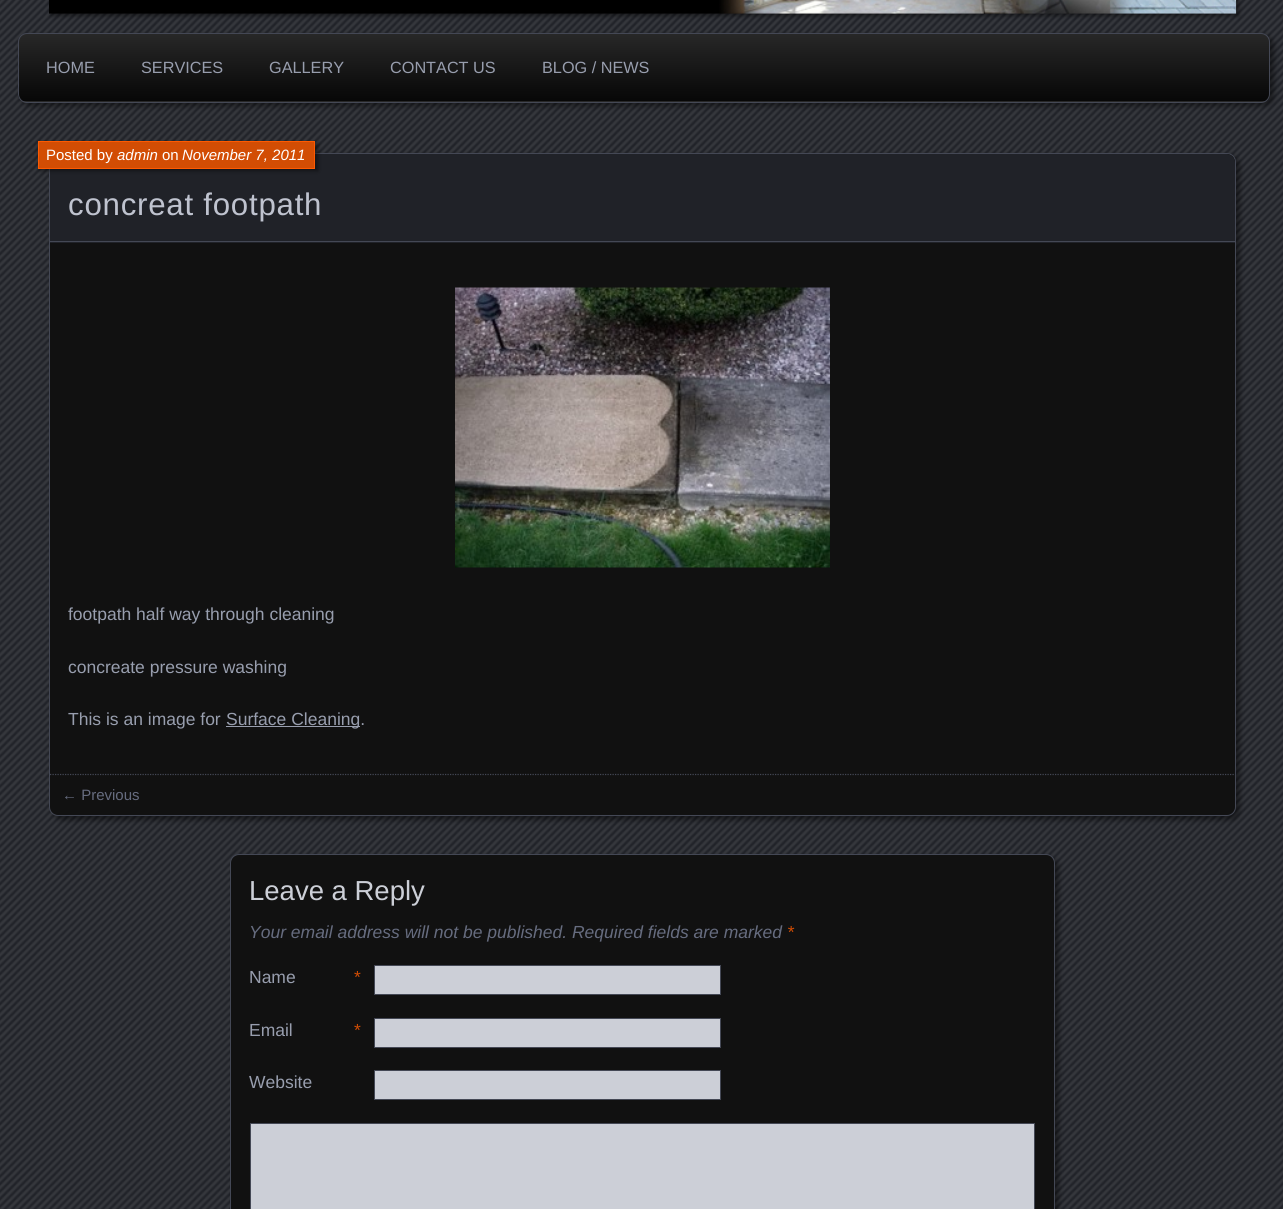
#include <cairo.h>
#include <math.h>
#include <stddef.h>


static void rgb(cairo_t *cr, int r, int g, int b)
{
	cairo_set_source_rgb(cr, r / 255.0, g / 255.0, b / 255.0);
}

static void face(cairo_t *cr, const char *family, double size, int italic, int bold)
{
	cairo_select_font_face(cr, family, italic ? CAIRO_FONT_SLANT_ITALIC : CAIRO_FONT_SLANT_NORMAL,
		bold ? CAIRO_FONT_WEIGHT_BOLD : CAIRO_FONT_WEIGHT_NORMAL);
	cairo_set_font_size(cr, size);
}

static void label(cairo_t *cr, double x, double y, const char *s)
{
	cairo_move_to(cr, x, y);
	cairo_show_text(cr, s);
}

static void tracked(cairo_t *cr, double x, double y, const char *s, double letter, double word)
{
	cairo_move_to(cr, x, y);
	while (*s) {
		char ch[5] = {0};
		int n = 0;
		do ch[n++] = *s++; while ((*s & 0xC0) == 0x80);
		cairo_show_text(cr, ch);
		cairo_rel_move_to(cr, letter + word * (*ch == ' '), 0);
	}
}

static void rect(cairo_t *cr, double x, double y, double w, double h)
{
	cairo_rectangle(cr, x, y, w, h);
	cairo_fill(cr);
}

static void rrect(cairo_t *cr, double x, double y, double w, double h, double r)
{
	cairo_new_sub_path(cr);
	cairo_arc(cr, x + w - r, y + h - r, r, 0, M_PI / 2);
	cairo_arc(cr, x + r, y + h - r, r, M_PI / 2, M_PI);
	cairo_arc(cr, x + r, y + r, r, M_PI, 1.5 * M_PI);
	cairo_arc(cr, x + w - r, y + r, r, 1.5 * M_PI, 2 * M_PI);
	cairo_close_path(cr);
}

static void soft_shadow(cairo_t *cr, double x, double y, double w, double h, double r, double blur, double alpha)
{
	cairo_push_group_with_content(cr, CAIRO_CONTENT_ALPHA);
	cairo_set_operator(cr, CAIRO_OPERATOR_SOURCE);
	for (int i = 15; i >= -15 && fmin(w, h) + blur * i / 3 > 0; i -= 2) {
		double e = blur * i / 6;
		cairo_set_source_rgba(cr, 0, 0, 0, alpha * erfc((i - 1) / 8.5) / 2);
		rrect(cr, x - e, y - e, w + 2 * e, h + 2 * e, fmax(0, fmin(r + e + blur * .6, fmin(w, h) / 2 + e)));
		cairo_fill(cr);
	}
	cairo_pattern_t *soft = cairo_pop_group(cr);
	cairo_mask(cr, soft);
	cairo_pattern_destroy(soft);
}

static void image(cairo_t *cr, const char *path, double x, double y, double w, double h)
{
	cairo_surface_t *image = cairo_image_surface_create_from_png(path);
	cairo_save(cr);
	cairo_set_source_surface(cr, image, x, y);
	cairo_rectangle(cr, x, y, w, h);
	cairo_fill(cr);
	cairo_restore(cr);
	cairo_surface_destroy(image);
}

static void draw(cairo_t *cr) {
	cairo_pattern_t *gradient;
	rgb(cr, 32, 34, 40);
	cairo_paint(cr);
	image(cr, "image0.png", 0, 0, 1283, 1209);
	rgb(cr, 0, 0, 0);
	soft_shadow(cr, 51, -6, 1188, 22, 0, 2, 0.45);
	image(cr, "image1.png", 49, 0, 1188, 14);
	soft_shadow(cr, 21, 36, 1253, 70, 9, 2.5, 0.45);
	cairo_save(cr);
	rrect(cr, 18, 33, 1252, 70, 9);
	cairo_clip(cr);
	gradient = cairo_pattern_create_linear(644, 34, 644, 101);
	cairo_pattern_add_color_stop_rgba(gradient, 0.01, 0.153, 0.153, 0.153, 1);
	cairo_pattern_add_color_stop_rgba(gradient, 1, 0.027, 0.027, 0.027, 1);
	cairo_set_source(cr, gradient);
	cairo_pattern_destroy(gradient);
	rect(cr, 18, 34, 1252, 67);
	gradient = cairo_pattern_create_linear(644, 101, 644, 169);
	cairo_pattern_add_color_stop_rgba(gradient, 0.01, 0.153, 0.153, 0.153, 1);
	cairo_pattern_add_color_stop_rgba(gradient, 1, 0.027, 0.027, 0.027, 1);
	cairo_set_source(cr, gradient);
	cairo_pattern_destroy(gradient);
	rect(cr, 18, 101, 1252, 2);
	cairo_restore(cr);
	rrect(cr, 18.5, 33.5, 1251, 69, 8.5);
	rgb(cr, 68, 72, 85);
	cairo_set_line_width(cr, 1);
	cairo_stroke(cr);
	face(cr, "Liberation Sans", 16.25, 0, 0);
	rgb(cr, 152, 158, 174);
	label(cr, 46, 73, "HOME");
	label(cr, 141, 73, "SERVICES");
	label(cr, 269, 73, "GALLERY");
	label(cr, 390, 73, "CONTACT US");
	label(cr, 542, 73, "BLOG / NEWS");
	rgb(cr, 0, 0, 0);
	soft_shadow(cr, 53, 156, 1187, 664, 9, 2.5, 0.45);
	rgb(cr, 17, 17, 17);
	rrect(cr, 49.5, 153.5, 1186, 662, 8.5);
	cairo_fill_preserve(cr);
	rgb(cr, 68, 72, 85);
	cairo_stroke(cr);
	rgb(cr, 32, 34, 40);
	cairo_new_path(cr);
	cairo_move_to(cr, 59, 154);
	cairo_line_to(cr, 1226, 154);
	cairo_curve_to(cr, 1231, 154, 1235, 158, 1235, 163);
	cairo_line_to(cr, 1235, 243);
	cairo_line_to(cr, 50, 243);
	cairo_line_to(cr, 50, 163);
	cairo_curve_to(cr, 50, 158, 54, 154, 59, 154);
	cairo_close_path(cr);
	cairo_fill(cr);
	rgb(cr, 68, 72, 85);
	rect(cr, 50, 241, 1185, 1);
	rgb(cr, 0, 0, 0);
	soft_shadow(cr, 40, 144, 278, 27, 0, 2, 0.45);
	rgb(cr, 210, 77, 4);
	cairo_rectangle(cr, 38.5, 141.5, 276, 27);
	cairo_fill_preserve(cr);
	rgb(cr, 255, 90, 0);
	cairo_stroke(cr);
	face(cr, "Liberation Sans", 15, 0, 0);
	rgb(cr, 255, 255, 255);
	label(cr, 46, 160, "Posted by");
	face(cr, "Liberation Sans", 15, 1, 0);
	label(cr, 117, 160, "admin");
	face(cr, "Liberation Sans", 15, 0, 0);
	label(cr, 162, 160, "on");
	face(cr, "Liberation Sans", 15, 1, 0);
	label(cr, 182, 160, "November 7, 2011");
	face(cr, "Liberation Sans", 31.25, 0, 0);
	rgb(cr, 191, 195, 207);
	tracked(cr, 68, 215, "concreat footpath", 0.75, 0);
	image(cr, "image2.png", 455, 287, 375, 281);
	face(cr, "Liberation Sans", 17.5, 0, 0);
	rgb(cr, 152, 158, 174);
	label(cr, 68, 620, "footpath half way through cleaning");
	label(cr, 68, 673, "concreate pressure washing");
	label(cr, 68, 725, "This is an image for");
	rect(cr, 226, 726, 134, 1);
	label(cr, 226, 725, "Surface Cleaning.");
	cairo_new_path(cr);
	cairo_move_to(cr, 50, 774.5);
	cairo_line_to(cr, 1235, 774.5);
	rgb(cr, 68, 72, 85);
	cairo_set_line_width(cr, 1.2);
	cairo_set_dash(cr, (double[]){1.25, 1.25}, 2, 0);
	cairo_stroke(cr);
	face(cr, "Liberation Sans", 15, 0, 0);
	rgb(cr, 102, 108, 127);
	label(cr, 62, 800, "← Previous");
	rgb(cr, 0, 0, 0);
	soft_shadow(cr, 234, 858, 825, 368, 9, 2.5, 0.45);
	rgb(cr, 17, 17, 17);
	rrect(cr, 230.5, 854.5, 824, 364, 8.5);
	cairo_fill_preserve(cr);
	rgb(cr, 68, 72, 85);
	cairo_set_line_width(cr, 1);
	cairo_set_dash(cr, NULL, 0, 0);
	cairo_stroke(cr);
	face(cr, "Liberation Sans", 27.5, 0, 0);
	rgb(cr, 204, 207, 215);
	label(cr, 249, 900, "Leave a Reply");
	face(cr, "Liberation Sans", 17.5, 1, 0);
	rgb(cr, 102, 108, 127);
	label(cr, 249, 938, "Your email address will not be published. Required fields are marked");
	rgb(cr, 210, 77, 4);
	label(cr, 787, 938, "*");
	face(cr, "Liberation Sans", 17.5, 0, 0);
	rgb(cr, 152, 158, 174);
	label(cr, 249, 983, "Name");
	rgb(cr, 210, 77, 4);
	label(cr, 354, 983, "*");
	rgb(cr, 204, 207, 215);
	cairo_rectangle(cr, 374.5, 965.5, 346, 29);
	cairo_fill_preserve(cr);
	rgb(cr, 68, 72, 85);
	cairo_stroke(cr);
	rgb(cr, 152, 158, 174);
	label(cr, 249, 1036, "Email");
	rgb(cr, 210, 77, 4);
	label(cr, 354, 1036, "*");
	rgb(cr, 204, 207, 215);
	cairo_rectangle(cr, 374.5, 1018.5, 346, 29);
	cairo_fill_preserve(cr);
	rgb(cr, 68, 72, 85);
	cairo_stroke(cr);
	rgb(cr, 152, 158, 174);
	label(cr, 249, 1088, "Website");
	rgb(cr, 204, 207, 215);
	cairo_rectangle(cr, 374.5, 1070.5, 346, 29);
	cairo_fill_preserve(cr);
	rgb(cr, 68, 72, 85);
	cairo_stroke(cr);
	rgb(cr, 204, 207, 215);
	cairo_rectangle(cr, 250.5, 1123.5, 784, 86);
	cairo_fill_preserve(cr);
	rgb(cr, 68, 72, 85);
	cairo_stroke(cr);
}

int main(void) {
	cairo_surface_t *surface = cairo_image_surface_create(CAIRO_FORMAT_RGB24, 1283, 1209);
	cairo_t *cr = cairo_create(surface);
	cairo_font_options_t *options = cairo_font_options_create();
	cairo_font_options_set_hint_metrics(options, CAIRO_HINT_METRICS_OFF);
	cairo_font_options_set_hint_style(options, CAIRO_HINT_STYLE_NONE);
	cairo_set_font_options(cr, options);
	cairo_set_miter_limit(cr, 4);
	draw(cr);
	cairo_surface_write_to_png(surface, "render.png");
	cairo_font_options_destroy(options);
	cairo_destroy(cr);
	cairo_surface_destroy(surface);
	return 0;
}
